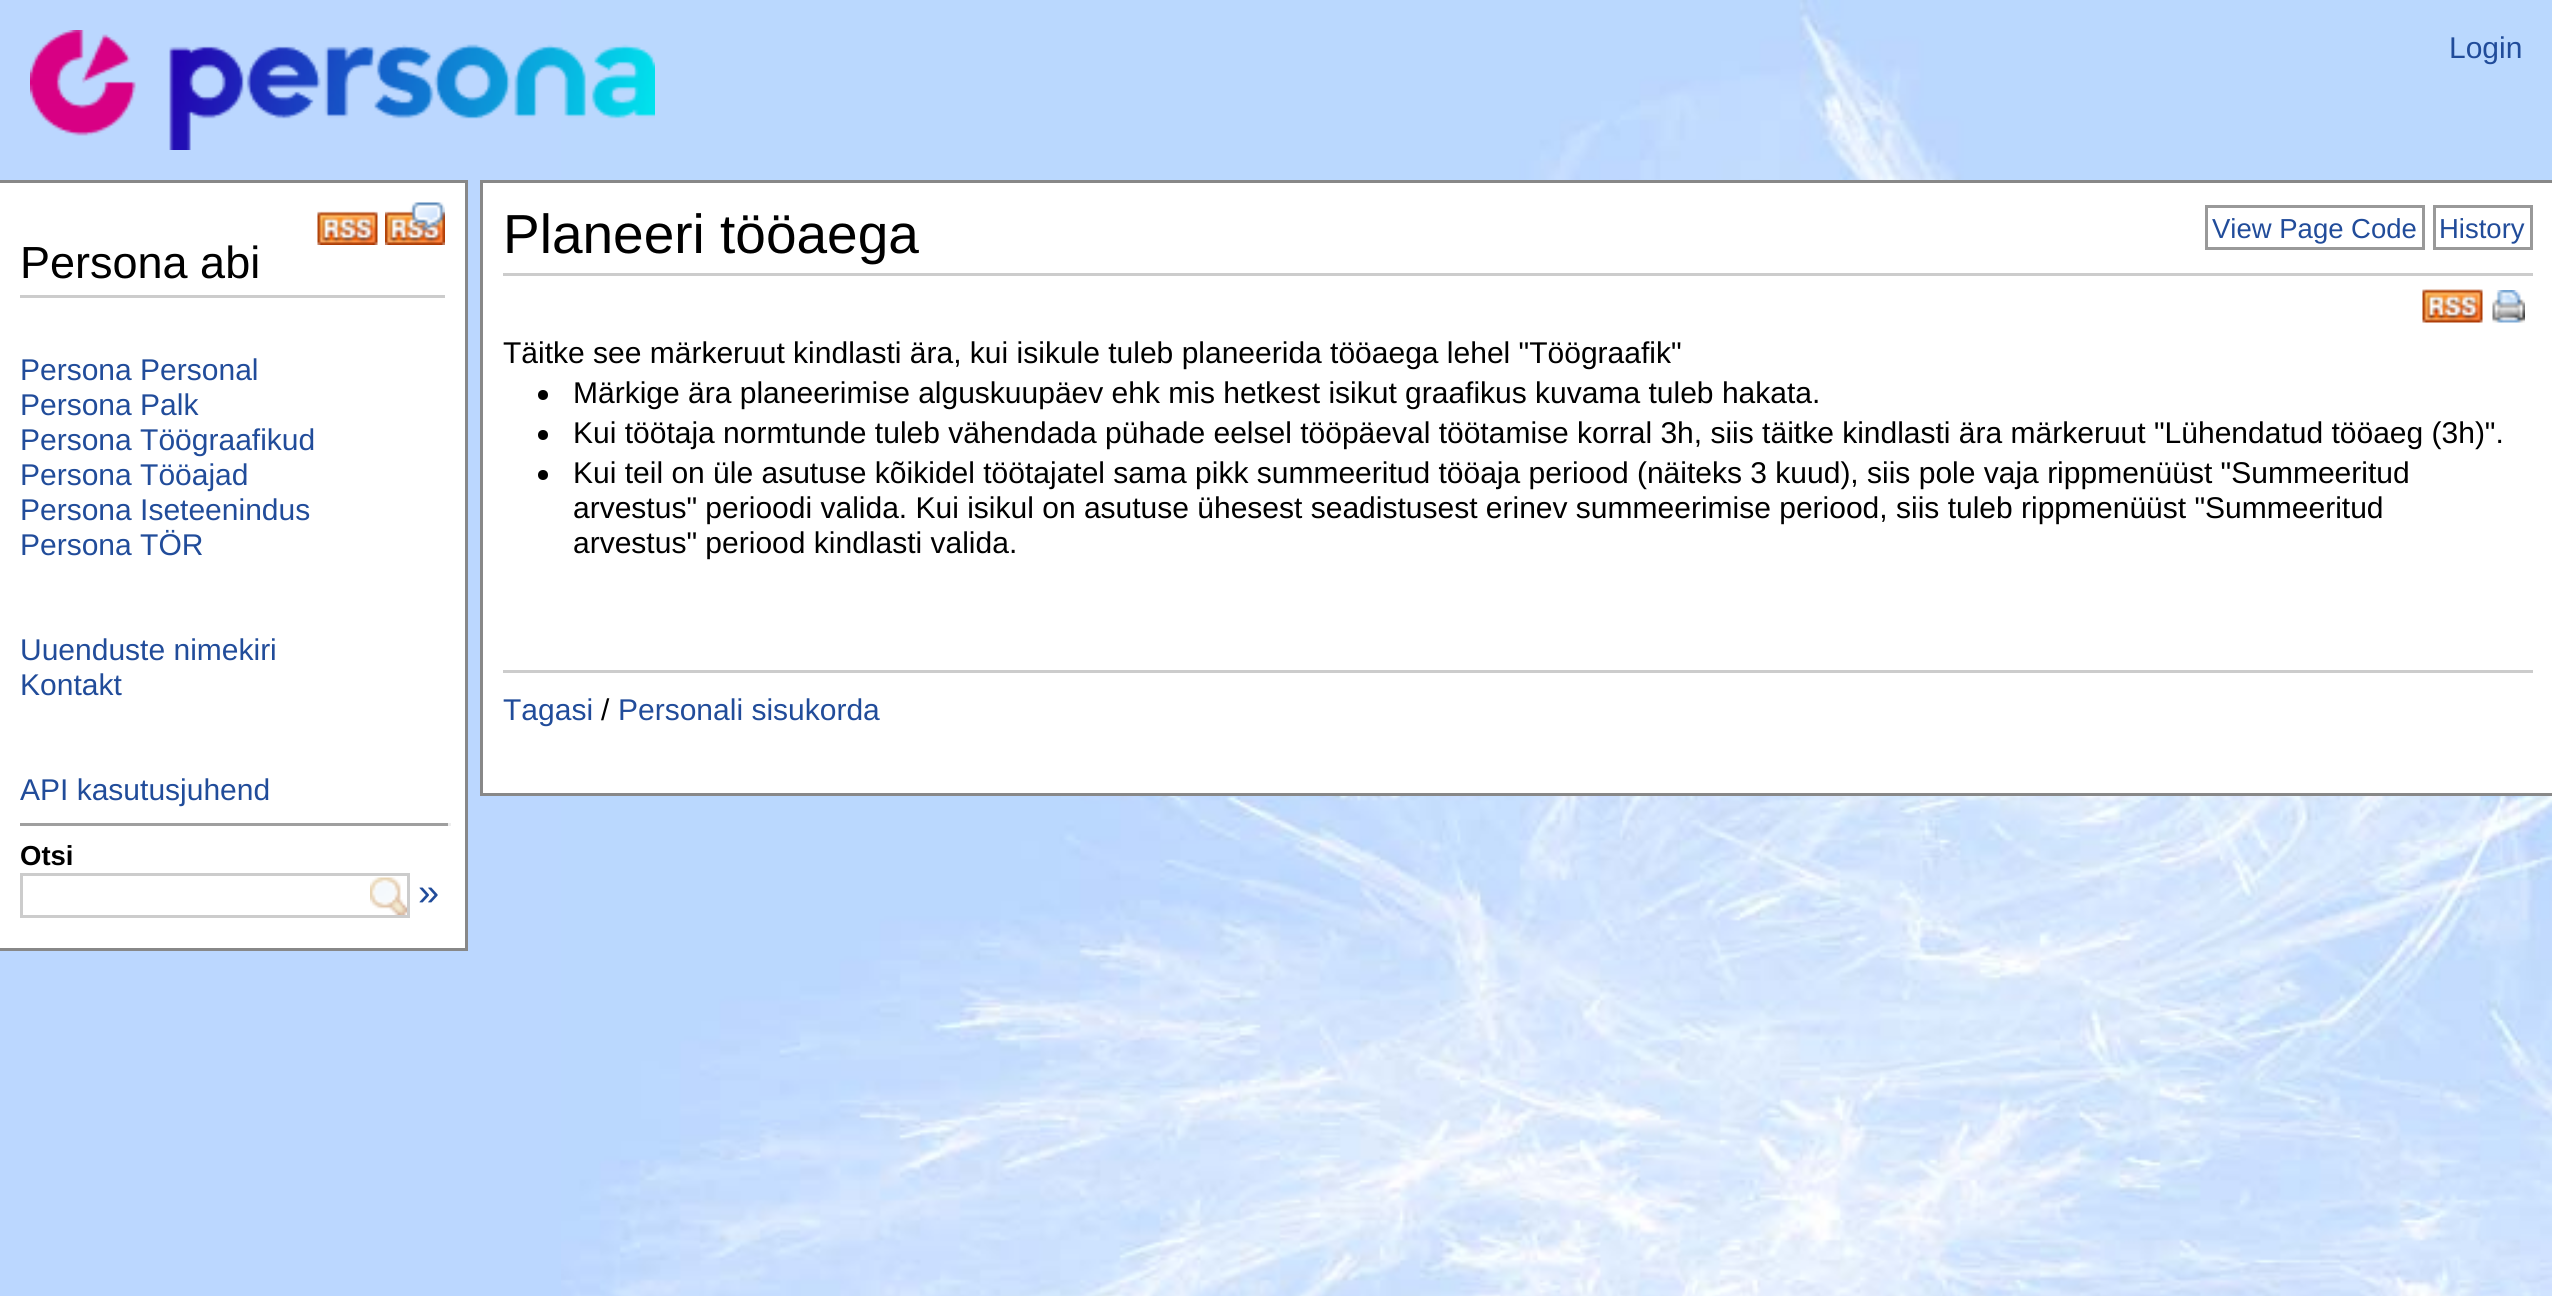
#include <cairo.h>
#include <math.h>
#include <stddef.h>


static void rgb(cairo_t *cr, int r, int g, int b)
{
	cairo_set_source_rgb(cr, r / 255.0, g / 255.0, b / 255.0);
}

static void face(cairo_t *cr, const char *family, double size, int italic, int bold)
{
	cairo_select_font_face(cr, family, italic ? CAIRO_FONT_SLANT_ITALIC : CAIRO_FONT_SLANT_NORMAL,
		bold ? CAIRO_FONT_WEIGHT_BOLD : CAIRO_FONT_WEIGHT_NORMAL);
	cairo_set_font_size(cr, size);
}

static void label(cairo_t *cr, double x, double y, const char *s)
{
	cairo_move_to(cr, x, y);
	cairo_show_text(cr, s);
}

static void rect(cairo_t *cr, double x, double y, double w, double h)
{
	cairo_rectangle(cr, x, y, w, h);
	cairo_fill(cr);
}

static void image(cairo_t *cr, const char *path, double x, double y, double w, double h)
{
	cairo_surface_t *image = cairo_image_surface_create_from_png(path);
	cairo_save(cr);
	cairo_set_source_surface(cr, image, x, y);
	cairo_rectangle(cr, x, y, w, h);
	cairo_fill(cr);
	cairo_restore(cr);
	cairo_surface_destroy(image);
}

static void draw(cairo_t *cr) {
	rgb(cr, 187, 215, 255);
	cairo_paint(cr);
	image(cr, "image0.png", 561, 0, 1991, 1296);
	image(cr, "image1.png", 30, 30, 625, 120);
	face(cr, "Liberation Sans", 30, 0, 0);
	rgb(cr, 33, 76, 154);
	label(cr, 2449, 58, "Login");
	rgb(cr, 255, 255, 255);
	rect(cr, 0, 183, 465, 765);
	rgb(cr, 136, 136, 136);
	rect(cr, 0, 180, 468, 3);
	rect(cr, 465, 180, 3, 770);
	rect(cr, 0, 948, 468, 3);
	image(cr, "image2.png", 317, 211, 61, 34);
	image(cr, "image3.png", 385, 202, 60, 43);
	rgb(cr, 204, 204, 204);
	rect(cr, 20, 295, 425, 3);
	face(cr, "Liberation Sans", 45, 0, 0);
	rgb(cr, 0, 0, 0);
	label(cr, 20, 278, "Persona abi");
	face(cr, "Liberation Sans", 30, 0, 0);
	rgb(cr, 33, 76, 154);
	label(cr, 20, 380, "Persona Personal");
	label(cr, 20, 415, "Persona Palk");
	label(cr, 20, 450, "Persona Töögraafikud");
	label(cr, 20, 485, "Persona Tööajad");
	label(cr, 20, 520, "Persona Iseteenindus");
	label(cr, 20, 555, "Persona TÖR");
	label(cr, 20, 660, "Uuenduste nimekiri");
	label(cr, 20, 695, "Kontakt");
	label(cr, 20, 800, "API kasutusjuhend");
	rgb(cr, 159, 159, 159);
	rect(cr, 20, 823, 430, 3);
	rgb(cr, 238, 238, 238);
	rect(cr, 448, 823, 3, 3);
	face(cr, "Liberation Sans", 27.5, 0, 1);
	rgb(cr, 0, 0, 0);
	label(cr, 20, 865, "Otsi");
	image(cr, "image4.png", 370, 877, 37, 38);
	cairo_rectangle(cr, 21.5, 874.5, 387, 42);
	rgb(cr, 204, 204, 204);
	cairo_set_line_width(cr, 3);
	cairo_stroke(cr);
	face(cr, "Liberation Sans", 38, 0, 0);
	rgb(cr, 33, 76, 154);
	label(cr, 418, 905, "»");
	rgb(cr, 255, 255, 255);
	rect(cr, 483, 183, 2069, 610);
	rgb(cr, 136, 136, 136);
	rect(cr, 480, 180, 2072, 3);
	rect(cr, 480, 793, 2072, 3);
	rect(cr, 480, 180, 3, 615);
	rgb(cr, 204, 204, 204);
	rect(cr, 503, 273, 2030, 3);
	face(cr, "Liberation Sans", 55, 0, 0);
	rgb(cr, 0, 0, 0);
	label(cr, 503, 253, "Planeeri tööaega");
	cairo_rectangle(cr, 2206.5, 206.5, 217, 42);
	rgb(cr, 153, 153, 153);
	cairo_stroke(cr);
	face(cr, "Liberation Sans", 27.5, 0, 0);
	rgb(cr, 33, 76, 154);
	label(cr, 2212, 238, "View Page Code");
	cairo_rectangle(cr, 2434.5, 206.5, 97, 42);
	rgb(cr, 153, 153, 153);
	cairo_stroke(cr);
	rgb(cr, 33, 76, 154);
	label(cr, 2439, 238, "History");
	image(cr, "image5.png", 2422, 289, 61, 34);
	image(cr, "image6.png", 2492, 290, 33, 33);
	face(cr, "Liberation Sans", 30, 0, 0);
	rgb(cr, 0, 0, 0);
	label(cr, 503, 363, "Täitke see märkeruut kindlasti ära, kui isikule tuleb planeerida tööaega lehel \"Töögraafik\"");
	cairo_new_path(cr);
	cairo_arc(cr, 543, 395, 5, 0, 2 * M_PI);
	cairo_fill(cr);
	label(cr, 573, 403, "Märkige ära planeerimise alguskuupäev ehk mis hetkest isikut graafikus kuvama tuleb hakata.");
	cairo_new_path(cr);
	cairo_arc(cr, 543, 435, 5, 0, 2 * M_PI);
	cairo_fill(cr);
	label(cr, 573, 443, "Kui töötaja normtunde tuleb vähendada pühade eelsel tööpäeval töötamise korral 3h, siis täitke kindlasti ära märkeruut \"Lühendatud tööaeg (3h)\".");
	cairo_new_path(cr);
	cairo_arc(cr, 543, 475, 5, 0, 2 * M_PI);
	cairo_fill(cr);
	label(cr, 573, 483, "Kui teil on üle asutuse kõikidel töötajatel sama pikk summeeritud tööaja periood (näiteks 3 kuud), siis pole vaja rippmenüüst \"Summeeritud");
	label(cr, 573, 518, "arvestus\" perioodi valida. Kui isikul on asutuse ühesest seadistusest erinev summeerimise periood, siis tuleb rippmenüüst \"Summeeritud");
	label(cr, 573, 553, "arvestus\" periood kindlasti valida.");
	rgb(cr, 204, 204, 204);
	rect(cr, 503, 670, 2030, 3);
	rgb(cr, 33, 76, 154);
	label(cr, 503, 720, "Tagasi");
	rgb(cr, 0, 0, 0);
	label(cr, 601, 720, "/");
	rgb(cr, 33, 76, 154);
	label(cr, 618, 720, "Personali sisukorda");
}

int main(void) {
	cairo_surface_t *surface = cairo_image_surface_create(CAIRO_FORMAT_RGB24, 2552, 1296);
	cairo_t *cr = cairo_create(surface);
	cairo_font_options_t *options = cairo_font_options_create();
	cairo_font_options_set_hint_metrics(options, CAIRO_HINT_METRICS_OFF);
	cairo_font_options_set_hint_style(options, CAIRO_HINT_STYLE_NONE);
	cairo_set_font_options(cr, options);
	cairo_set_miter_limit(cr, 4);
	draw(cr);
	cairo_surface_write_to_png(surface, "render.png");
	cairo_font_options_destroy(options);
	cairo_destroy(cr);
	cairo_surface_destroy(surface);
	return 0;
}
